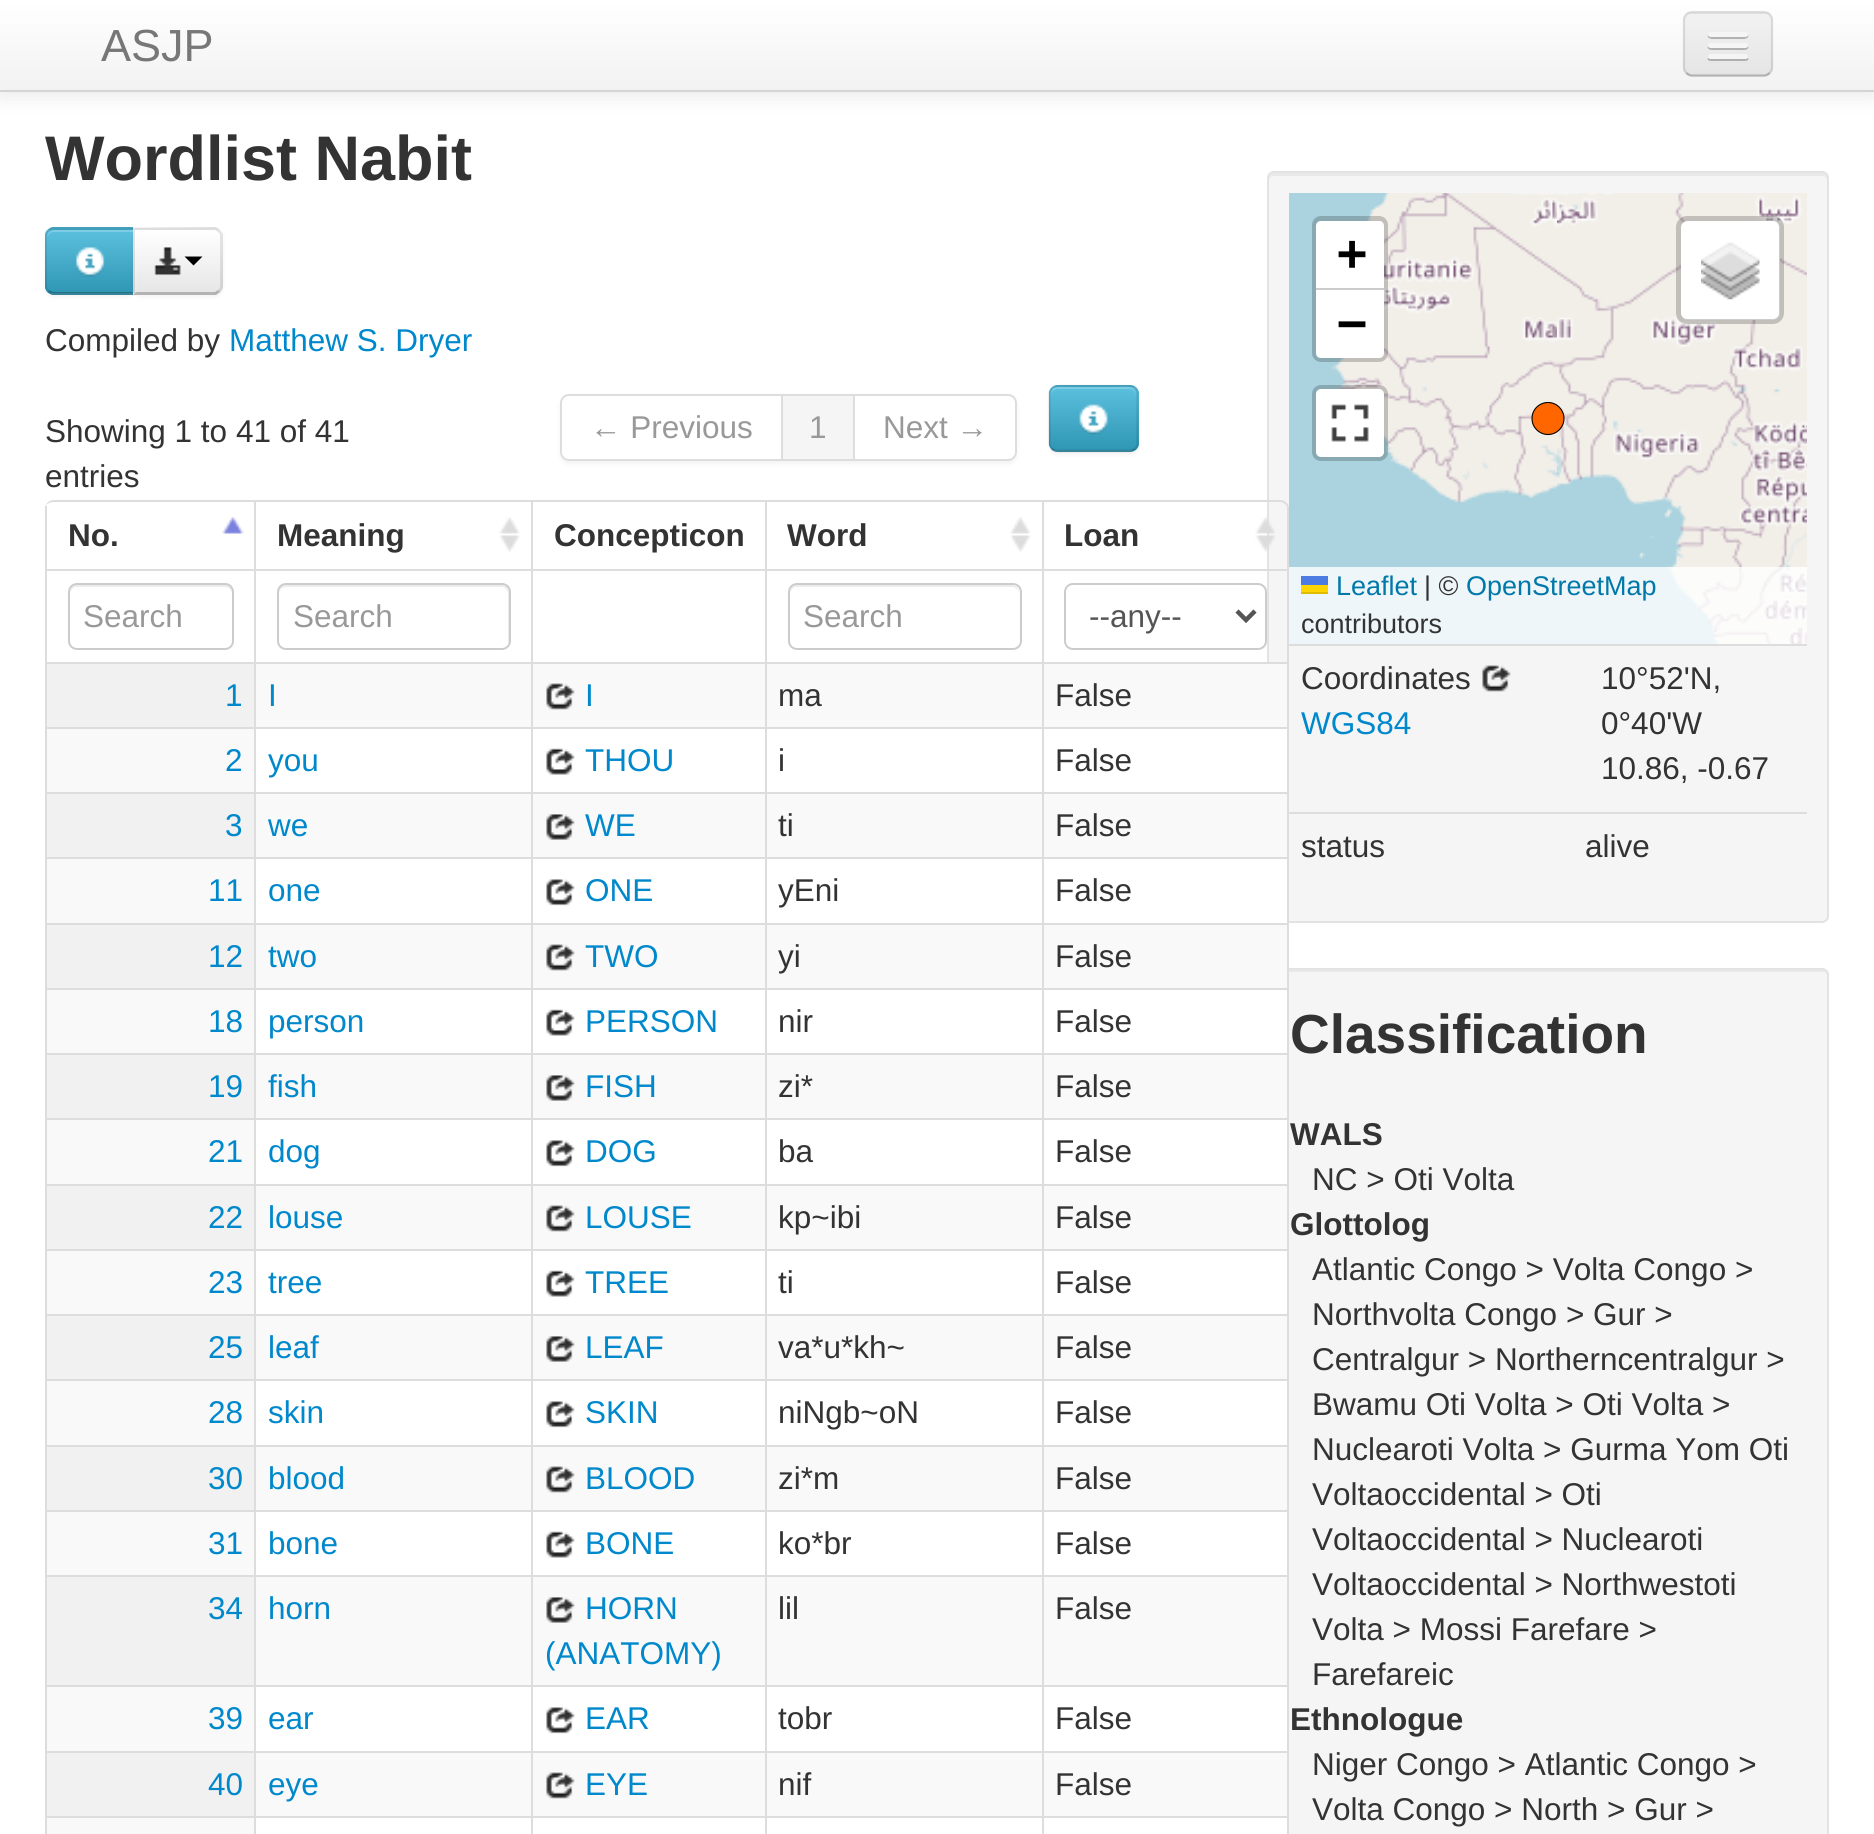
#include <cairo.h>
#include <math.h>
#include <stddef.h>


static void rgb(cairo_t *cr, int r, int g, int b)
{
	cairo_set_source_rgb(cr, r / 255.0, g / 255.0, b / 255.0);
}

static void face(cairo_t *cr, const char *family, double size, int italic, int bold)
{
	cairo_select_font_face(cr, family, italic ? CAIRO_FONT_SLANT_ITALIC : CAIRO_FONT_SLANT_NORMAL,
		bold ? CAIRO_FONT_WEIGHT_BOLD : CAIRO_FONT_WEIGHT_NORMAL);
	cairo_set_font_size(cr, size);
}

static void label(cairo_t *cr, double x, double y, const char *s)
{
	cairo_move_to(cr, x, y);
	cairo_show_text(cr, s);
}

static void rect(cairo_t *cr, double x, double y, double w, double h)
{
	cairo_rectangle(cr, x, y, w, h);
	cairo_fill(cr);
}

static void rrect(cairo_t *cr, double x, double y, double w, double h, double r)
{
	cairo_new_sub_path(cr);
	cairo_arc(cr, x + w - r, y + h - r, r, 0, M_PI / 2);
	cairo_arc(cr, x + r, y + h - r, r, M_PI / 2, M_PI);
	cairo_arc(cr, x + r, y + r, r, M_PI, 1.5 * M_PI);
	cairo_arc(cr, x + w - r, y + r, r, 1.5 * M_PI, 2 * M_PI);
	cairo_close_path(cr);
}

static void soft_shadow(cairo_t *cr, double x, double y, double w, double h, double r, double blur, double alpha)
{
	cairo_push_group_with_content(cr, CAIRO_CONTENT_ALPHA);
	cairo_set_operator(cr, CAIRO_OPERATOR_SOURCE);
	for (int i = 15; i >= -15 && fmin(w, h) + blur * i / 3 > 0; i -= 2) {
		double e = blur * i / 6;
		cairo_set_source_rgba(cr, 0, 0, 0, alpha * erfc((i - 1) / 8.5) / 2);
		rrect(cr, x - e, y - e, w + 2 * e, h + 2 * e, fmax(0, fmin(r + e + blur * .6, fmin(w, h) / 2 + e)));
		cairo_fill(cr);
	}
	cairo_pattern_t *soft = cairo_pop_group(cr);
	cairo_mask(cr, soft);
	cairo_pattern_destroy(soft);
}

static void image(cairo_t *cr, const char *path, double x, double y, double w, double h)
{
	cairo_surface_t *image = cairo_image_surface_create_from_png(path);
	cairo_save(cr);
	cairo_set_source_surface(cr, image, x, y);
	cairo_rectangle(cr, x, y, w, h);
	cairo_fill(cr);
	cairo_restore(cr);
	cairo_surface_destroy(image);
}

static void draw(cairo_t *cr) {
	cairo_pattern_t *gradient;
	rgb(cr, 255, 255, 255);
	cairo_paint(cr);
	rgb(cr, 0, 0, 0);
	soft_shadow(cr, 0, 2, 1874, 93, 0, 11, 0.1);
	gradient = cairo_pattern_create_linear(937, 0, 937, 90);
	cairo_pattern_add_color_stop_rgba(gradient, 0, 1, 1, 1, 1);
	cairo_pattern_add_color_stop_rgba(gradient, 1, 0.949, 0.949, 0.949, 1);
	cairo_set_source(cr, gradient);
	cairo_pattern_destroy(gradient);
	rect(cr, 0, 0, 1874, 90);
	rgb(cr, 212, 212, 212);
	rect(cr, 0, 90, 1874, 2);
	face(cr, "Liberation Sans", 45, 0, 0);
	rgb(cr, 119, 119, 119);
	label(cr, 101, 61, "ASJP");
	rgb(cr, 237, 237, 237);
	rrect(cr, 1683, 11, 90, 66, 9);
	cairo_fill(cr);
	cairo_save(cr);
	rrect(cr, 1683, 11, 90, 66, 9);
	cairo_clip(cr);
	gradient = cairo_pattern_create_linear(1728, 13, 1728, 74);
	cairo_pattern_add_color_stop_rgba(gradient, 0, 0.949, 0.949, 0.949, 1);
	cairo_pattern_add_color_stop_rgba(gradient, 1, 0.898, 0.898, 0.898, 1);
	cairo_set_source(cr, gradient);
	cairo_pattern_destroy(gradient);
	rect(cr, 1683, 14, 90, 60);
	cairo_restore(cr);
	cairo_new_path(cr);
	cairo_move_to(cr, 1769.5, 73);
	cairo_curve_to(cr, 1768, 74.5, 1766, 75.5, 1764, 75.5);
	cairo_line_to(cr, 1692, 75.5);
	cairo_curve_to(cr, 1690, 75.5, 1688, 74.5, 1686.5, 73);
	cairo_set_source_rgba(cr, 0, 0, 0, 0.25);
	cairo_set_line_width(cr, 2.2);
	cairo_stroke(cr);
	cairo_new_path(cr);
	cairo_move_to(cr, 1686.5, 73);
	cairo_curve_to(cr, 1685, 71.5, 1684, 69.5, 1684, 67.5);
	cairo_line_to(cr, 1684, 20.5);
	cairo_curve_to(cr, 1684, 18, 1685, 16, 1686.5, 14.5);
	cairo_curve_to(cr, 1688, 13, 1690, 12.5, 1692, 12.5);
	cairo_line_to(cr, 1764, 12.5);
	cairo_curve_to(cr, 1766, 12.5, 1768, 13, 1769.5, 14.5);
	cairo_curve_to(cr, 1771, 16, 1772, 18, 1772, 20);
	cairo_line_to(cr, 1772, 67.5);
	cairo_curve_to(cr, 1772, 69.5, 1771, 71.5, 1769.5, 73);
	cairo_set_source_rgba(cr, 0, 0, 0, 0.1);
	cairo_stroke(cr);
	rgb(cr, 178, 178, 178);
	cairo_new_path(cr);
	cairo_move_to(cr, 1708, 35);
	cairo_curve_to(cr, 1706, 40, 1716, 39, 1716, 39);
	cairo_line_to(cr, 1740, 39);
	cairo_curve_to(cr, 1740, 39, 1750, 40, 1748, 35);
	cairo_curve_to(cr, 1746, 37, 1710, 37, 1708, 35);
	cairo_close_path(cr);
	cairo_fill(cr);
	rgb(cr, 245, 245, 245);
	rrect(cr, 1708, 32, 40, 5, 2.5);
	cairo_fill(cr);
	rgb(cr, 176, 176, 176);
	cairo_new_path(cr);
	cairo_move_to(cr, 1708, 46);
	cairo_curve_to(cr, 1706, 51, 1715, 50, 1716, 50);
	cairo_line_to(cr, 1740, 50);
	cairo_curve_to(cr, 1741, 50, 1750, 51, 1748, 46);
	cairo_line_to(cr, 1746, 47);
	cairo_line_to(cr, 1710, 47);
	cairo_close_path(cr);
	cairo_fill(cr);
	rgb(cr, 245, 245, 245);
	rrect(cr, 1708, 43, 40, 5, 2.5);
	cairo_fill(cr);
	rgb(cr, 174, 174, 174);
	cairo_new_path(cr);
	cairo_move_to(cr, 1708, 58);
	cairo_curve_to(cr, 1706, 62, 1715, 61, 1716, 61);
	cairo_line_to(cr, 1740, 61);
	cairo_curve_to(cr, 1741, 61, 1750, 62, 1748, 58);
	cairo_line_to(cr, 1746, 58);
	cairo_line_to(cr, 1710, 58);
	cairo_close_path(cr);
	cairo_fill(cr);
	rgb(cr, 245, 245, 245);
	rrect(cr, 1708, 54, 40, 5, 2.5);
	cairo_fill(cr);
	face(cr, "Liberation Sans", 63, 0, 1);
	rgb(cr, 51, 51, 51);
	label(cr, 45, 180, "Wordlist Nabit");
	rgb(cr, 0, 0, 0);
	soft_shadow(cr, 45, 230, 90, 67, 9, 2, 0.05);
	rgb(cr, 73, 175, 205);
	cairo_new_path(cr);
	cairo_move_to(cr, 54, 227);
	cairo_line_to(cr, 135, 227);
	cairo_line_to(cr, 135, 295);
	cairo_line_to(cr, 54, 295);
	cairo_curve_to(cr, 49, 295, 45, 291, 45, 286);
	cairo_line_to(cr, 45, 236);
	cairo_curve_to(cr, 45, 231, 49, 227, 54, 227);
	cairo_close_path(cr);
	cairo_fill(cr);
	cairo_save(cr);
	cairo_new_path(cr);
	cairo_move_to(cr, 54, 227);
	cairo_line_to(cr, 135, 227);
	cairo_line_to(cr, 135, 295);
	cairo_line_to(cr, 54, 295);
	cairo_curve_to(cr, 49, 295, 45, 291, 45, 286);
	cairo_line_to(cr, 45, 236);
	cairo_curve_to(cr, 45, 231, 49, 227, 54, 227);
	cairo_close_path(cr);
	cairo_clip(cr);
	gradient = cairo_pattern_create_linear(90, 230, 90, 293);
	cairo_pattern_add_color_stop_rgba(gradient, 0, 0.357, 0.753, 0.871, 1);
	cairo_pattern_add_color_stop_rgba(gradient, 1, 0.184, 0.588, 0.706, 1);
	cairo_set_source(cr, gradient);
	cairo_pattern_destroy(gradient);
	rect(cr, 45, 230, 88, 63);
	cairo_restore(cr);
	cairo_set_source_rgba(cr, 1, 1, 1, 0.2);
	cairo_new_path(cr);
	cairo_move_to(cr, 54, 232);
	cairo_line_to(cr, 133, 232);
	cairo_line_to(cr, 133, 230);
	cairo_line_to(cr, 54, 230);
	cairo_curve_to(cr, 50, 230, 47, 233, 47, 237);
	cairo_line_to(cr, 47, 238);
	cairo_curve_to(cr, 47, 235, 50, 232, 54, 232);
	cairo_close_path(cr);
	cairo_fill(cr);
	cairo_set_source_rgba(cr, 0, 0, 0, 0.1);
	cairo_new_path(cr);
	cairo_move_to(cr, 54, 230);
	cairo_curve_to(cr, 52, 230, 51, 231, 49, 232);
	cairo_line_to(cr, 48, 230);
	cairo_curve_to(cr, 49, 229, 50, 228, 52, 227);
	cairo_line_to(cr, 135, 227);
	cairo_line_to(cr, 132, 230);
	cairo_close_path(cr);
	cairo_fill(cr);
	cairo_new_path(cr);
	cairo_move_to(cr, 135, 227);
	cairo_line_to(cr, 132, 230);
	cairo_line_to(cr, 133, 230);
	cairo_line_to(cr, 133, 292);
	cairo_line_to(cr, 132, 292);
	cairo_line_to(cr, 135, 295);
	cairo_close_path(cr);
	cairo_fill(cr);
	cairo_set_source_rgba(cr, 0, 0, 0, 0.25);
	cairo_new_path(cr);
	cairo_move_to(cr, 135, 295);
	cairo_line_to(cr, 52, 295);
	cairo_curve_to(cr, 50, 294, 49, 293, 48, 292);
	cairo_line_to(cr, 49, 290);
	cairo_curve_to(cr, 51, 291, 52, 292, 54, 292);
	cairo_line_to(cr, 132, 292);
	cairo_close_path(cr);
	cairo_fill(cr);
	cairo_set_source_rgba(cr, 0, 0, 0, 0.1);
	cairo_new_path(cr);
	cairo_move_to(cr, 45, 236);
	cairo_line_to(cr, 45, 286);
	cairo_curve_to(cr, 45, 288, 46, 291, 48, 292);
	cairo_line_to(cr, 49, 290);
	cairo_curve_to(cr, 48, 289, 47, 288, 47, 286);
	cairo_line_to(cr, 47, 236);
	cairo_curve_to(cr, 47, 234, 48, 233, 49, 232);
	cairo_line_to(cr, 48, 230);
	cairo_curve_to(cr, 46, 231, 45, 234, 45, 236);
	cairo_close_path(cr);
	cairo_fill(cr);
	image(cr, "image0.png", 76, 247, 29, 30);
	rgb(cr, 0, 0, 0);
	soft_shadow(cr, 133, 230, 90, 67, 9, 2, 0.05);
	rgb(cr, 245, 245, 245);
	cairo_new_path(cr);
	cairo_move_to(cr, 133, 227);
	cairo_line_to(cr, 214, 227);
	cairo_curve_to(cr, 219, 227, 223, 231, 223, 236);
	cairo_line_to(cr, 223, 286);
	cairo_curve_to(cr, 223, 291, 219, 295, 214, 295);
	cairo_line_to(cr, 133, 295);
	cairo_close_path(cr);
	cairo_fill(cr);
	cairo_save(cr);
	cairo_new_path(cr);
	cairo_move_to(cr, 133, 227);
	cairo_line_to(cr, 214, 227);
	cairo_curve_to(cr, 219, 227, 223, 231, 223, 236);
	cairo_line_to(cr, 223, 286);
	cairo_curve_to(cr, 223, 291, 219, 295, 214, 295);
	cairo_line_to(cr, 133, 295);
	cairo_close_path(cr);
	cairo_clip(cr);
	gradient = cairo_pattern_create_linear(178, 230, 178, 293);
	cairo_pattern_add_color_stop_rgba(gradient, 0, 1, 1, 1, 1);
	cairo_pattern_add_color_stop_rgba(gradient, 1, 0.902, 0.902, 0.902, 1);
	cairo_set_source(cr, gradient);
	cairo_pattern_destroy(gradient);
	rect(cr, 133, 230, 90, 63);
	cairo_restore(cr);
	cairo_set_source_rgba(cr, 1, 1, 1, 0.2);
	cairo_new_path(cr);
	cairo_move_to(cr, 135, 232);
	cairo_line_to(cr, 201, 232);
	cairo_curve_to(cr, 205, 232, 218, 229, 220, 237);
	cairo_line_to(cr, 220, 290);
	cairo_curve_to(cr, 221, 289, 221, 287, 221, 286);
	cairo_line_to(cr, 221, 237);
	cairo_curve_to(cr, 221, 233, 218, 230, 214, 230);
	cairo_line_to(cr, 135, 230);
	cairo_close_path(cr);
	cairo_fill(cr);
	cairo_set_source_rgba(cr, 1, 1, 1, 0.12);
	cairo_new_path(cr);
	cairo_move_to(cr, 135, 230);
	cairo_line_to(cr, 135, 293);
	cairo_line_to(cr, 214, 293);
	cairo_curve_to(cr, 215, 293, 217, 293, 218, 292);
	cairo_line_to(cr, 137, 292);
	cairo_line_to(cr, 137, 230);
	cairo_close_path(cr);
	cairo_fill(cr);
	cairo_set_source_rgba(cr, 0, 0, 0, 0.1);
	cairo_new_path(cr);
	cairo_move_to(cr, 133, 228);
	cairo_line_to(cr, 216, 227);
	cairo_line_to(cr, 220, 230);
	cairo_line_to(cr, 218, 232);
	cairo_line_to(cr, 215, 230);
	cairo_line_to(cr, 136, 230);
	cairo_close_path(cr);
	cairo_fill(cr);
	cairo_new_path(cr);
	cairo_move_to(cr, 223, 288);
	cairo_line_to(cr, 220, 292);
	cairo_line_to(cr, 218, 290);
	cairo_curve_to(cr, 219, 289, 220, 288, 220, 286);
	cairo_line_to(cr, 220, 236);
	cairo_curve_to(cr, 220, 234, 219, 233, 218, 232);
	cairo_line_to(cr, 220, 230);
	cairo_line_to(cr, 223, 234);
	cairo_close_path(cr);
	cairo_fill(cr);
	rgb(cr, 179, 179, 179);
	cairo_new_path(cr);
	cairo_move_to(cr, 133, 295);
	cairo_line_to(cr, 136, 292);
	cairo_line_to(cr, 215, 292);
	cairo_line_to(cr, 218, 290);
	cairo_line_to(cr, 220, 292);
	cairo_line_to(cr, 216, 295);
	cairo_close_path(cr);
	cairo_fill(cr);
	cairo_set_source_rgba(cr, 0, 0, 0, 0.1);
	cairo_new_path(cr);
	cairo_move_to(cr, 135, 230);
	cairo_line_to(cr, 135, 292);
	cairo_line_to(cr, 136, 292);
	cairo_line_to(cr, 133, 294);
	cairo_line_to(cr, 133, 228);
	cairo_line_to(cr, 136, 230);
	cairo_close_path(cr);
	cairo_fill(cr);
	image(cr, "image1.png", 154, 247, 27, 29);
	rgb(cr, 0, 0, 0);
	cairo_new_path(cr);
	cairo_move_to(cr, 184.5, 256.5);
	cairo_line_to(cr, 202.5, 256.5);
	cairo_line_to(cr, 193.5, 265.5);
	cairo_close_path(cr);
	cairo_fill(cr);
	face(cr, "Liberation Sans", 31.5, 0, 0);
	rgb(cr, 51, 51, 51);
	label(cr, 45, 351, "Compiled by");
	rgb(cr, 0, 136, 204);
	label(cr, 229, 351, "Matthew S. Dryer");
	rgb(cr, 51, 51, 51);
	label(cr, 45, 442, "Showing 1 to 41 of 41");
	label(cr, 45, 487, "entries");
	cairo_save(cr);
	cairo_set_fill_rule(cr, CAIRO_FILL_RULE_EVEN_ODD);
	cairo_new_path(cr);
	cairo_move_to(cr, 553, 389);
	cairo_line_to(cr, 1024, 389);
	cairo_line_to(cr, 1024, 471);
	cairo_line_to(cr, 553, 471);
	cairo_close_path(cr);
	cairo_move_to(cr, 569, 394);
	cairo_line_to(cr, 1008, 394);
	cairo_curve_to(cr, 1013, 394, 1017, 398, 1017, 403);
	cairo_line_to(cr, 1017, 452);
	cairo_curve_to(cr, 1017, 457, 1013, 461, 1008, 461);
	cairo_line_to(cr, 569, 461);
	cairo_curve_to(cr, 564, 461, 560, 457, 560, 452);
	cairo_line_to(cr, 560, 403);
	cairo_curve_to(cr, 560, 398, 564, 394, 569, 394);
	cairo_close_path(cr);
	cairo_clip(cr);
	rgb(cr, 0, 0, 0);
	soft_shadow(cr, 560, 396, 457, 68, 9, 2, 0.05);
	cairo_restore(cr);
	cairo_new_path(cr);
	cairo_move_to(cr, 569, 395);
	cairo_line_to(cr, 782, 395);
	cairo_line_to(cr, 782, 460);
	cairo_line_to(cr, 569, 460);
	cairo_curve_to(cr, 564.5, 460, 561, 456.5, 561, 452);
	cairo_line_to(cr, 561, 403);
	cairo_curve_to(cr, 561, 398.5, 564.5, 395, 569, 395);
	cairo_close_path(cr);
	rgb(cr, 221, 221, 221);
	cairo_set_line_width(cr, 2);
	cairo_stroke(cr);
	rgb(cr, 153, 153, 153);
	label(cr, 590, 438, "← Previous");
	rgb(cr, 245, 245, 245);
	rect(cr, 783, 396, 70, 63);
	rgb(cr, 221, 221, 221);
	rect(cr, 783, 394, 72, 2);
	rect(cr, 853, 394, 2, 67);
	rect(cr, 783, 459, 72, 2);
	rgb(cr, 153, 153, 153);
	label(cr, 809, 438, "1");
	rgb(cr, 221, 221, 221);
	cairo_set_fill_rule(cr, CAIRO_FILL_RULE_EVEN_ODD);
	cairo_new_path(cr);
	cairo_move_to(cr, 855, 394);
	cairo_line_to(cr, 1008, 394);
	cairo_curve_to(cr, 1013, 394, 1017, 398, 1017, 403);
	cairo_line_to(cr, 1017, 452);
	cairo_curve_to(cr, 1017, 457, 1013, 461, 1008, 461);
	cairo_line_to(cr, 855, 461);
	cairo_close_path(cr);
	cairo_move_to(cr, 855, 396);
	cairo_line_to(cr, 1008, 396);
	cairo_curve_to(cr, 1012, 396, 1015, 399, 1015, 403);
	cairo_line_to(cr, 1015, 452);
	cairo_curve_to(cr, 1015, 456, 1012, 459, 1008, 459);
	cairo_line_to(cr, 855, 459);
	cairo_close_path(cr);
	cairo_fill(cr);
	rgb(cr, 153, 153, 153);
	label(cr, 883, 438, "Next →");
	rgb(cr, 0, 0, 0);
	soft_shadow(cr, 1049, 387, 90, 68, 9, 2, 0.05);
	rgb(cr, 73, 175, 205);
	rrect(cr, 1049, 385, 90, 67, 9);
	cairo_fill(cr);
	cairo_save(cr);
	cairo_set_fill_rule(cr, CAIRO_FILL_RULE_WINDING);
	rrect(cr, 1049, 385, 90, 67, 9);
	cairo_clip(cr);
	gradient = cairo_pattern_create_linear(1094, 387, 1094, 450);
	cairo_pattern_add_color_stop_rgba(gradient, 0, 0.357, 0.753, 0.871, 1);
	cairo_pattern_add_color_stop_rgba(gradient, 1, 0.184, 0.588, 0.706, 1);
	cairo_set_source(cr, gradient);
	cairo_pattern_destroy(gradient);
	rect(cr, 1049, 387, 90, 63);
	cairo_restore(cr);
	cairo_set_source_rgba(cr, 1, 1, 1, 0.2);
	cairo_set_fill_rule(cr, CAIRO_FILL_RULE_WINDING);
	cairo_new_path(cr);
	cairo_move_to(cr, 1058, 389);
	cairo_line_to(cr, 1130, 389);
	cairo_curve_to(cr, 1133, 389, 1136, 392, 1136, 396);
	cairo_curve_to(cr, 1136, 384, 1126, 387, 1117, 387);
	cairo_line_to(cr, 1070, 387);
	cairo_curve_to(cr, 1061, 387, 1051, 384, 1051, 396);
	cairo_curve_to(cr, 1051, 392, 1054, 389, 1058, 389);
	cairo_close_path(cr);
	cairo_fill(cr);
	cairo_new_path(cr);
	cairo_move_to(cr, 1135, 449);
	cairo_curve_to(cr, 1133.5, 450.5, 1131.5, 451, 1129.5, 451);
	cairo_line_to(cr, 1057.5, 451);
	cairo_curve_to(cr, 1055.5, 451, 1053.5, 450.5, 1052, 449);
	cairo_set_source_rgba(cr, 0, 0, 0, 0.25);
	cairo_set_line_width(cr, 2.2);
	cairo_stroke(cr);
	cairo_new_path(cr);
	cairo_move_to(cr, 1052, 449);
	cairo_curve_to(cr, 1050.5, 447.5, 1049.5, 445.5, 1049.5, 443);
	cairo_line_to(cr, 1049.5, 394);
	cairo_curve_to(cr, 1049.5, 391.5, 1050.5, 389.5, 1052, 388);
	cairo_curve_to(cr, 1053.5, 386.5, 1055.5, 386, 1057.5, 386);
	cairo_line_to(cr, 1129.5, 386);
	cairo_curve_to(cr, 1131.5, 386, 1133.5, 386.5, 1135, 388);
	cairo_curve_to(cr, 1136.5, 389.5, 1137.5, 391.5, 1137.5, 394);
	cairo_line_to(cr, 1137.5, 443);
	cairo_curve_to(cr, 1137.5, 445.5, 1136.5, 447.5, 1135, 449);
	cairo_set_source_rgba(cr, 0, 0, 0, 0.1);
	cairo_stroke(cr);
	image(cr, "image2.png", 1079, 404, 29, 31);
	rgb(cr, 245, 245, 245);
	rrect(cr, 1267, 171, 562, 752, 7);
	cairo_fill(cr);
	rgb(cr, 233, 233, 233);
	cairo_new_path(cr);
	cairo_move_to(cr, 1274, 176);
	cairo_line_to(cr, 1822, 176);
	cairo_curve_to(cr, 1825, 176, 1827, 178, 1827, 180);
	cairo_line_to(cr, 1827, 178);
	cairo_curve_to(cr, 1827, 175, 1825, 173, 1822, 173);
	cairo_line_to(cr, 1274, 173);
	cairo_curve_to(cr, 1271, 173, 1269, 175, 1269, 178);
	cairo_line_to(cr, 1269, 180);
	cairo_curve_to(cr, 1269, 178, 1271, 176, 1274, 176);
	cairo_close_path(cr);
	cairo_fill(cr);
	rrect(cr, 1268, 172, 560, 750, 6);
	rgb(cr, 227, 227, 227);
	cairo_set_line_width(cr, 2);
	cairo_stroke(cr);
	rgb(cr, 245, 245, 245);
	rrect(cr, 1267, 968, 562, 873, 7);
	cairo_fill(cr);
	rgb(cr, 233, 233, 233);
	cairo_new_path(cr);
	cairo_move_to(cr, 1274, 972);
	cairo_line_to(cr, 1822, 972);
	cairo_curve_to(cr, 1825, 972, 1827, 974, 1827, 976);
	cairo_curve_to(cr, 1827, 973, 1825, 970, 1822, 970);
	cairo_line_to(cr, 1274, 970);
	cairo_curve_to(cr, 1271, 970, 1269, 973, 1269, 976);
	cairo_curve_to(cr, 1269, 974, 1271, 972, 1274, 972);
	cairo_close_path(cr);
	cairo_fill(cr);
	rrect(cr, 1268, 969, 560, 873, 6);
	rgb(cr, 227, 227, 227);
	cairo_stroke(cr);
	rgb(cr, 221, 221, 221);
	cairo_set_fill_rule(cr, CAIRO_FILL_RULE_EVEN_ODD);
	cairo_new_path(cr);
	cairo_move_to(cr, 54, 500);
	cairo_line_to(cr, 1280, 500);
	cairo_curve_to(cr, 1285, 500, 1289, 504, 1289, 508);
	cairo_line_to(cr, 1289, 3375);
	cairo_curve_to(cr, 1289, 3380, 1285, 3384, 1280, 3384);
	cairo_line_to(cr, 54, 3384);
	cairo_curve_to(cr, 49, 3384, 45, 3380, 45, 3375);
	cairo_line_to(cr, 45, 508);
	cairo_curve_to(cr, 45, 504, 49, 500, 54, 500);
	cairo_close_path(cr);
	cairo_move_to(cr, 54, 502);
	cairo_line_to(cr, 1280, 502);
	cairo_curve_to(cr, 1284, 502, 1287, 505, 1287, 508);
	cairo_line_to(cr, 1287, 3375);
	cairo_curve_to(cr, 1287, 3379, 1284, 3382, 1280, 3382);
	cairo_line_to(cr, 54, 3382);
	cairo_curve_to(cr, 49, 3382, 45, 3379, 45, 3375);
	cairo_line_to(cr, 45, 508);
	cairo_curve_to(cr, 45, 505, 49, 502, 54, 502);
	cairo_close_path(cr);
	cairo_fill(cr);
	image(cr, "image3.png", 222, 517, 22, 17);
	rect(cr, 45, 506, 2, 63);
	face(cr, "Liberation Sans", 31.5, 0, 1);
	rgb(cr, 51, 51, 51);
	label(cr, 68, 546, "No.");
	image(cr, "image4.png", 499, 517, 21, 35);
	rgb(cr, 221, 221, 221);
	rect(cr, 254, 502, 2, 67);
	rgb(cr, 51, 51, 51);
	label(cr, 277, 546, "Meaning");
	rgb(cr, 221, 221, 221);
	rect(cr, 531, 502, 2, 67);
	rgb(cr, 51, 51, 51);
	label(cr, 554, 546, "Concepticon");
	image(cr, "image5.png", 1010, 517, 21, 35);
	rgb(cr, 221, 221, 221);
	rect(cr, 765, 502, 2, 67);
	rgb(cr, 51, 51, 51);
	label(cr, 787, 546, "Word");
	image(cr, "image6.png", 1255, 517, 21, 35);
	rgb(cr, 221, 221, 221);
	rect(cr, 1042, 502, 2, 67);
	rgb(cr, 51, 51, 51);
	label(cr, 1064, 546, "Loan");
	rgb(cr, 221, 221, 221);
	rect(cr, 45, 569, 1242, 2);
	rect(cr, 45, 569, 2, 93);
	rgb(cr, 236, 236, 236);
	cairo_set_fill_rule(cr, CAIRO_FILL_RULE_WINDING);
	cairo_new_path(cr);
	cairo_move_to(cr, 76, 587);
	cairo_line_to(cr, 225, 587);
	cairo_curve_to(cr, 229, 587, 232, 590, 232, 594);
	cairo_line_to(cr, 232, 592);
	cairo_curve_to(cr, 232, 588, 229, 585, 225, 585);
	cairo_line_to(cr, 77, 585);
	cairo_curve_to(cr, 73, 585, 70, 588, 70, 592);
	cairo_line_to(cr, 70, 594);
	cairo_curve_to(cr, 70, 590, 73, 587, 76, 587);
	cairo_close_path(cr);
	cairo_fill(cr);
	rrect(cr, 69, 584, 164, 65, 8);
	rgb(cr, 204, 204, 204);
	cairo_stroke(cr);
	face(cr, "Liberation Sans", 31.5, 0, 0);
	rgb(cr, 153, 153, 153);
	label(cr, 83, 627, "Search");
	rgb(cr, 221, 221, 221);
	rect(cr, 254, 569, 2, 93);
	rgb(cr, 236, 236, 236);
	cairo_new_path(cr);
	cairo_move_to(cr, 286, 587);
	cairo_line_to(cr, 502, 587);
	cairo_curve_to(cr, 505, 587, 508, 590, 508, 594);
	cairo_line_to(cr, 508, 645);
	cairo_curve_to(cr, 509, 644, 509, 642, 509, 641);
	cairo_line_to(cr, 509, 592);
	cairo_curve_to(cr, 509, 588, 506, 585, 502, 585);
	cairo_line_to(cr, 286, 585);
	cairo_curve_to(cr, 282, 585, 279, 588, 279, 592);
	cairo_line_to(cr, 279, 594);
	cairo_curve_to(cr, 279, 590, 282, 587, 286, 587);
	cairo_close_path(cr);
	cairo_fill(cr);
	rrect(cr, 278, 584, 232, 65, 8);
	rgb(cr, 204, 204, 204);
	cairo_stroke(cr);
	rgb(cr, 153, 153, 153);
	label(cr, 293, 627, "Search");
	rgb(cr, 221, 221, 221);
	rect(cr, 531, 569, 2, 93);
	rect(cr, 765, 569, 2, 93);
	rgb(cr, 236, 236, 236);
	cairo_new_path(cr);
	cairo_move_to(cr, 796, 587);
	cairo_line_to(cr, 1012, 587);
	cairo_curve_to(cr, 1016, 587, 1019, 590, 1019, 594);
	cairo_line_to(cr, 1019, 592);
	cairo_curve_to(cr, 1019, 588, 1016, 585, 1012, 585);
	cairo_line_to(cr, 797, 585);
	cairo_curve_to(cr, 793, 585, 790, 588, 790, 592);
	cairo_line_to(cr, 790, 594);
	cairo_curve_to(cr, 790, 590, 793, 587, 796, 587);
	cairo_close_path(cr);
	cairo_fill(cr);
	rrect(cr, 789, 584, 232, 65, 8);
	rgb(cr, 204, 204, 204);
	cairo_stroke(cr);
	rgb(cr, 153, 153, 153);
	label(cr, 803, 627, "Search");
	rgb(cr, 221, 221, 221);
	rect(cr, 1042, 569, 2, 93);
	rrect(cr, 1065, 584, 201, 65, 8);
	rgb(cr, 204, 204, 204);
	cairo_stroke(cr);
	cairo_new_path(cr);
	cairo_move_to(cr, 1237, 611);
	cairo_line_to(cr, 1246, 620);
	cairo_line_to(cr, 1255, 611);
	rgb(cr, 85, 85, 85);
	cairo_set_line_width(cr, 4.5);
	cairo_stroke(cr);
	label(cr, 1089, 627, "--any--");
	rgb(cr, 249, 249, 249);
	rect(cr, 256, 664, 1031, 63);
	rgb(cr, 241, 241, 241);
	rect(cr, 47, 664, 207, 63);
	rgb(cr, 221, 221, 221);
	rect(cr, 45, 662, 1242, 2);
	rect(cr, 45, 662, 2, 65);
	rgb(cr, 0, 136, 204);
	label(cr, 225, 706, "1");
	rgb(cr, 221, 221, 221);
	rect(cr, 254, 662, 2, 65);
	rgb(cr, 0, 136, 204);
	label(cr, 268, 706, "I");
	rgb(cr, 221, 221, 221);
	rect(cr, 531, 662, 2, 65);
	image(cr, "image7.png", 546, 683, 29, 27);
	rgb(cr, 0, 136, 204);
	label(cr, 585, 706, "I");
	rgb(cr, 221, 221, 221);
	rect(cr, 765, 662, 2, 65);
	rgb(cr, 51, 51, 51);
	label(cr, 778, 706, "ma");
	rgb(cr, 221, 221, 221);
	rect(cr, 1042, 662, 2, 65);
	rgb(cr, 51, 51, 51);
	label(cr, 1055, 706, "False");
	rgb(cr, 255, 255, 255);
	rect(cr, 1267, 729, 20, 63);
	rgb(cr, 249, 249, 249);
	rect(cr, 47, 729, 207, 63);
	rgb(cr, 221, 221, 221);
	rect(cr, 45, 727, 1242, 2);
	rect(cr, 45, 727, 2, 65);
	rgb(cr, 0, 136, 204);
	label(cr, 225, 771, "2");
	rgb(cr, 221, 221, 221);
	rect(cr, 254, 727, 2, 65);
	rgb(cr, 0, 136, 204);
	label(cr, 268, 771, "you");
	rgb(cr, 221, 221, 221);
	rect(cr, 531, 727, 2, 65);
	image(cr, "image8.png", 546, 748, 29, 27);
	rgb(cr, 0, 136, 204);
	label(cr, 585, 771, "THOU");
	rgb(cr, 221, 221, 221);
	rect(cr, 765, 727, 2, 65);
	rgb(cr, 51, 51, 51);
	label(cr, 778, 771, "i");
	rgb(cr, 221, 221, 221);
	rect(cr, 1042, 727, 2, 65);
	rgb(cr, 51, 51, 51);
	label(cr, 1055, 771, "False");
	rgb(cr, 249, 249, 249);
	rect(cr, 256, 794, 1031, 63);
	rgb(cr, 241, 241, 241);
	rect(cr, 47, 794, 207, 63);
	rgb(cr, 221, 221, 221);
	rect(cr, 45, 792, 1242, 2);
	rect(cr, 45, 792, 2, 65);
	rgb(cr, 0, 136, 204);
	label(cr, 225, 836, "3");
	rgb(cr, 221, 221, 221);
	rect(cr, 254, 792, 2, 65);
	rgb(cr, 0, 136, 204);
	label(cr, 268, 836, "we");
	rgb(cr, 221, 221, 221);
	rect(cr, 531, 792, 2, 65);
	image(cr, "image9.png", 546, 814, 29, 26);
	rgb(cr, 0, 136, 204);
	label(cr, 585, 836, "WE");
	rgb(cr, 221, 221, 221);
	rect(cr, 765, 792, 2, 65);
	rgb(cr, 51, 51, 51);
	label(cr, 778, 836, "ti");
	rgb(cr, 221, 221, 221);
	rect(cr, 1042, 792, 2, 65);
	rgb(cr, 51, 51, 51);
	label(cr, 1055, 836, "False");
	rgb(cr, 255, 255, 255);
	rect(cr, 1267, 859, 20, 64);
	rgb(cr, 249, 249, 249);
	rect(cr, 47, 859, 207, 64);
	rgb(cr, 221, 221, 221);
	rect(cr, 45, 857, 1242, 2);
	rect(cr, 45, 857, 2, 66);
	rgb(cr, 0, 136, 204);
	label(cr, 208, 901, "11");
	rgb(cr, 221, 221, 221);
	rect(cr, 254, 857, 2, 66);
	rgb(cr, 0, 136, 204);
	label(cr, 268, 901, "one");
	rgb(cr, 221, 221, 221);
	rect(cr, 531, 857, 2, 66);
	image(cr, "image10.png", 546, 879, 29, 27);
	rgb(cr, 0, 136, 204);
	label(cr, 585, 901, "ONE");
	rgb(cr, 221, 221, 221);
	rect(cr, 765, 857, 2, 66);
	rgb(cr, 51, 51, 51);
	label(cr, 778, 901, "yEni");
	rgb(cr, 221, 221, 221);
	rect(cr, 1042, 857, 2, 66);
	rgb(cr, 51, 51, 51);
	label(cr, 1055, 901, "False");
	rgb(cr, 249, 249, 249);
	rect(cr, 256, 925, 1031, 63);
	rgb(cr, 241, 241, 241);
	rect(cr, 47, 925, 207, 63);
	rgb(cr, 221, 221, 221);
	rect(cr, 45, 923, 1242, 2);
	rect(cr, 45, 923, 2, 65);
	rgb(cr, 0, 136, 204);
	label(cr, 208, 967, "12");
	rgb(cr, 221, 221, 221);
	rect(cr, 254, 923, 2, 65);
	rgb(cr, 0, 136, 204);
	label(cr, 268, 967, "two");
	rgb(cr, 221, 221, 221);
	rect(cr, 531, 923, 2, 65);
	image(cr, "image7.png", 546, 944, 29, 27);
	rgb(cr, 0, 136, 204);
	label(cr, 585, 967, "TWO");
	rgb(cr, 221, 221, 221);
	rect(cr, 765, 923, 2, 65);
	rgb(cr, 51, 51, 51);
	label(cr, 778, 967, "yi");
	rgb(cr, 221, 221, 221);
	rect(cr, 1042, 923, 2, 65);
	rgb(cr, 51, 51, 51);
	label(cr, 1055, 967, "False");
	rgb(cr, 255, 255, 255);
	rect(cr, 1267, 990, 20, 63);
	rgb(cr, 249, 249, 249);
	rect(cr, 47, 990, 207, 63);
	rgb(cr, 221, 221, 221);
	rect(cr, 45, 988, 1242, 2);
	rect(cr, 45, 988, 2, 65);
	rgb(cr, 0, 136, 204);
	label(cr, 208, 1032, "18");
	rgb(cr, 221, 221, 221);
	rect(cr, 254, 988, 2, 65);
	rgb(cr, 0, 136, 204);
	label(cr, 268, 1032, "person");
	rgb(cr, 221, 221, 221);
	rect(cr, 531, 988, 2, 65);
	image(cr, "image8.png", 546, 1009, 29, 27);
	rgb(cr, 0, 136, 204);
	label(cr, 585, 1032, "PERSON");
	rgb(cr, 221, 221, 221);
	rect(cr, 765, 988, 2, 65);
	rgb(cr, 51, 51, 51);
	label(cr, 778, 1032, "nir");
	rgb(cr, 221, 221, 221);
	rect(cr, 1042, 988, 2, 65);
	rgb(cr, 51, 51, 51);
	label(cr, 1055, 1032, "False");
	rgb(cr, 249, 249, 249);
	rect(cr, 256, 1055, 1031, 63);
	rgb(cr, 241, 241, 241);
	rect(cr, 47, 1055, 207, 63);
	rgb(cr, 221, 221, 221);
	rect(cr, 45, 1053, 1242, 2);
	rect(cr, 45, 1053, 2, 65);
	rgb(cr, 0, 136, 204);
	label(cr, 208, 1097, "19");
	rgb(cr, 221, 221, 221);
	rect(cr, 254, 1053, 2, 65);
	rgb(cr, 0, 136, 204);
	label(cr, 268, 1097, "fish");
	rgb(cr, 221, 221, 221);
	rect(cr, 531, 1053, 2, 65);
	image(cr, "image9.png", 546, 1075, 29, 26);
	rgb(cr, 0, 136, 204);
	label(cr, 585, 1097, "FISH");
	rgb(cr, 221, 221, 221);
	rect(cr, 765, 1053, 2, 65);
	rgb(cr, 51, 51, 51);
	label(cr, 778, 1097, "zi*");
	rgb(cr, 221, 221, 221);
	rect(cr, 1042, 1053, 2, 65);
	rgb(cr, 51, 51, 51);
	label(cr, 1055, 1097, "False");
	rgb(cr, 255, 255, 255);
	rect(cr, 1267, 1120, 20, 64);
	rgb(cr, 249, 249, 249);
	rect(cr, 47, 1120, 207, 64);
	rgb(cr, 221, 221, 221);
	rect(cr, 45, 1118, 1242, 2);
	rect(cr, 45, 1118, 2, 66);
	rgb(cr, 0, 136, 204);
	label(cr, 208, 1162, "21");
	rgb(cr, 221, 221, 221);
	rect(cr, 254, 1118, 2, 66);
	rgb(cr, 0, 136, 204);
	label(cr, 268, 1162, "dog");
	rgb(cr, 221, 221, 221);
	rect(cr, 531, 1118, 2, 66);
	image(cr, "image11.png", 546, 1140, 29, 27);
	rgb(cr, 0, 136, 204);
	label(cr, 585, 1162, "DOG");
	rgb(cr, 221, 221, 221);
	rect(cr, 765, 1118, 2, 66);
	rgb(cr, 51, 51, 51);
	label(cr, 778, 1162, "ba");
	rgb(cr, 221, 221, 221);
	rect(cr, 1042, 1118, 2, 66);
	rgb(cr, 51, 51, 51);
	label(cr, 1055, 1162, "False");
	rgb(cr, 249, 249, 249);
	rect(cr, 256, 1186, 1031, 63);
	rgb(cr, 241, 241, 241);
	rect(cr, 47, 1186, 207, 63);
	rgb(cr, 221, 221, 221);
	rect(cr, 45, 1184, 1242, 2);
	rect(cr, 45, 1184, 2, 65);
	rgb(cr, 0, 136, 204);
	label(cr, 208, 1228, "22");
	rgb(cr, 221, 221, 221);
	rect(cr, 254, 1184, 2, 65);
	rgb(cr, 0, 136, 204);
	label(cr, 268, 1228, "louse");
	rgb(cr, 221, 221, 221);
	rect(cr, 531, 1184, 2, 65);
	image(cr, "image7.png", 546, 1205, 29, 27);
	rgb(cr, 0, 136, 204);
	label(cr, 585, 1228, "LOUSE");
	rgb(cr, 221, 221, 221);
	rect(cr, 765, 1184, 2, 65);
	rgb(cr, 51, 51, 51);
	label(cr, 778, 1228, "kp~ibi");
	rgb(cr, 221, 221, 221);
	rect(cr, 1042, 1184, 2, 65);
	rgb(cr, 51, 51, 51);
	label(cr, 1055, 1228, "False");
	rgb(cr, 255, 255, 255);
	rect(cr, 1267, 1251, 20, 63);
	rgb(cr, 249, 249, 249);
	rect(cr, 47, 1251, 207, 63);
	rgb(cr, 221, 221, 221);
	rect(cr, 45, 1249, 1242, 2);
	rect(cr, 45, 1249, 2, 65);
	rgb(cr, 0, 136, 204);
	label(cr, 208, 1293, "23");
	rgb(cr, 221, 221, 221);
	rect(cr, 254, 1249, 2, 65);
	rgb(cr, 0, 136, 204);
	label(cr, 268, 1293, "tree");
	rgb(cr, 221, 221, 221);
	rect(cr, 531, 1249, 2, 65);
	image(cr, "image8.png", 546, 1270, 29, 27);
	rgb(cr, 0, 136, 204);
	label(cr, 585, 1293, "TREE");
	rgb(cr, 221, 221, 221);
	rect(cr, 765, 1249, 2, 65);
	rgb(cr, 51, 51, 51);
	label(cr, 778, 1293, "ti");
	rgb(cr, 221, 221, 221);
	rect(cr, 1042, 1249, 2, 65);
	rgb(cr, 51, 51, 51);
	label(cr, 1055, 1293, "False");
	rgb(cr, 249, 249, 249);
	rect(cr, 256, 1316, 1031, 63);
	rgb(cr, 241, 241, 241);
	rect(cr, 47, 1316, 207, 63);
	rgb(cr, 221, 221, 221);
	rect(cr, 45, 1314, 1242, 2);
	rect(cr, 45, 1314, 2, 65);
	rgb(cr, 0, 136, 204);
	label(cr, 208, 1358, "25");
	rgb(cr, 221, 221, 221);
	rect(cr, 254, 1314, 2, 65);
	rgb(cr, 0, 136, 204);
	label(cr, 268, 1358, "leaf");
	rgb(cr, 221, 221, 221);
	rect(cr, 531, 1314, 2, 65);
	image(cr, "image9.png", 546, 1336, 29, 26);
	rgb(cr, 0, 136, 204);
	label(cr, 585, 1358, "LEAF");
	rgb(cr, 221, 221, 221);
	rect(cr, 765, 1314, 2, 65);
	rgb(cr, 51, 51, 51);
	label(cr, 778, 1358, "va*u*kh~");
	rgb(cr, 221, 221, 221);
	rect(cr, 1042, 1314, 2, 65);
	rgb(cr, 51, 51, 51);
	label(cr, 1055, 1358, "False");
	rgb(cr, 255, 255, 255);
	rect(cr, 1267, 1381, 20, 64);
	rgb(cr, 249, 249, 249);
	rect(cr, 47, 1381, 207, 64);
	rgb(cr, 221, 221, 221);
	rect(cr, 45, 1379, 1242, 2);
	rect(cr, 45, 1379, 2, 66);
	rgb(cr, 0, 136, 204);
	label(cr, 208, 1423, "28");
	rgb(cr, 221, 221, 221);
	rect(cr, 254, 1379, 2, 66);
	rgb(cr, 0, 136, 204);
	label(cr, 268, 1423, "skin");
	rgb(cr, 221, 221, 221);
	rect(cr, 531, 1379, 2, 66);
	image(cr, "image10.png", 546, 1401, 29, 27);
	rgb(cr, 0, 136, 204);
	label(cr, 585, 1423, "SKIN");
	rgb(cr, 221, 221, 221);
	rect(cr, 765, 1379, 2, 66);
	rgb(cr, 51, 51, 51);
	label(cr, 778, 1423, "niNgb~oN");
	rgb(cr, 221, 221, 221);
	rect(cr, 1042, 1379, 2, 66);
	rgb(cr, 51, 51, 51);
	label(cr, 1055, 1423, "False");
	rgb(cr, 249, 249, 249);
	rect(cr, 256, 1447, 1031, 63);
	rgb(cr, 241, 241, 241);
	rect(cr, 47, 1447, 207, 63);
	rgb(cr, 221, 221, 221);
	rect(cr, 45, 1445, 1242, 2);
	rect(cr, 45, 1445, 2, 65);
	rgb(cr, 0, 136, 204);
	label(cr, 208, 1489, "30");
	rgb(cr, 221, 221, 221);
	rect(cr, 254, 1445, 2, 65);
	rgb(cr, 0, 136, 204);
	label(cr, 268, 1489, "blood");
	rgb(cr, 221, 221, 221);
	rect(cr, 531, 1445, 2, 65);
	image(cr, "image7.png", 546, 1466, 29, 27);
	rgb(cr, 0, 136, 204);
	label(cr, 585, 1489, "BLOOD");
	rgb(cr, 221, 221, 221);
	rect(cr, 765, 1445, 2, 65);
	rgb(cr, 51, 51, 51);
	label(cr, 778, 1489, "zi*m");
	rgb(cr, 221, 221, 221);
	rect(cr, 1042, 1445, 2, 65);
	rgb(cr, 51, 51, 51);
	label(cr, 1055, 1489, "False");
	rgb(cr, 255, 255, 255);
	rect(cr, 1267, 1512, 20, 63);
	rgb(cr, 249, 249, 249);
	rect(cr, 47, 1512, 207, 63);
	rgb(cr, 221, 221, 221);
	rect(cr, 45, 1510, 1242, 2);
	rect(cr, 45, 1510, 2, 65);
	rgb(cr, 0, 136, 204);
	label(cr, 208, 1554, "31");
	rgb(cr, 221, 221, 221);
	rect(cr, 254, 1510, 2, 65);
	rgb(cr, 0, 136, 204);
	label(cr, 268, 1554, "bone");
	rgb(cr, 221, 221, 221);
	rect(cr, 531, 1510, 2, 65);
	image(cr, "image8.png", 546, 1531, 29, 27);
	rgb(cr, 0, 136, 204);
	label(cr, 585, 1554, "BONE");
	rgb(cr, 221, 221, 221);
	rect(cr, 765, 1510, 2, 65);
	rgb(cr, 51, 51, 51);
	label(cr, 778, 1554, "ko*br");
	rgb(cr, 221, 221, 221);
	rect(cr, 1042, 1510, 2, 65);
	rgb(cr, 51, 51, 51);
	label(cr, 1055, 1554, "False");
	rgb(cr, 249, 249, 249);
	rect(cr, 256, 1577, 1031, 108);
	rgb(cr, 241, 241, 241);
	rect(cr, 47, 1577, 207, 108);
	rgb(cr, 221, 221, 221);
	rect(cr, 45, 1575, 1242, 2);
	rect(cr, 45, 1575, 2, 110);
	rgb(cr, 0, 136, 204);
	label(cr, 208, 1619, "34");
	rgb(cr, 221, 221, 221);
	rect(cr, 254, 1575, 2, 110);
	rgb(cr, 0, 136, 204);
	label(cr, 268, 1619, "horn");
	rgb(cr, 221, 221, 221);
	rect(cr, 531, 1575, 2, 110);
	image(cr, "image9.png", 546, 1597, 29, 26);
	rgb(cr, 0, 136, 204);
	label(cr, 585, 1619, "HORN");
	label(cr, 545, 1664, "(ANATOMY)");
	rgb(cr, 221, 221, 221);
	rect(cr, 765, 1575, 2, 110);
	rgb(cr, 51, 51, 51);
	label(cr, 778, 1619, "lil");
	rgb(cr, 221, 221, 221);
	rect(cr, 1042, 1575, 2, 110);
	rgb(cr, 51, 51, 51);
	label(cr, 1055, 1619, "False");
	rgb(cr, 255, 255, 255);
	rect(cr, 1267, 1687, 20, 64);
	rgb(cr, 249, 249, 249);
	rect(cr, 47, 1687, 207, 64);
	rgb(cr, 221, 221, 221);
	rect(cr, 45, 1685, 1242, 2);
	rect(cr, 45, 1685, 2, 66);
	rgb(cr, 0, 136, 204);
	label(cr, 208, 1729, "39");
	rgb(cr, 221, 221, 221);
	rect(cr, 254, 1685, 2, 66);
	rgb(cr, 0, 136, 204);
	label(cr, 268, 1729, "ear");
	rgb(cr, 221, 221, 221);
	rect(cr, 531, 1685, 2, 66);
	image(cr, "image10.png", 546, 1707, 29, 27);
	rgb(cr, 0, 136, 204);
	label(cr, 585, 1729, "EAR");
	rgb(cr, 221, 221, 221);
	rect(cr, 765, 1685, 2, 66);
	rgb(cr, 51, 51, 51);
	label(cr, 778, 1729, "tobr");
	rgb(cr, 221, 221, 221);
	rect(cr, 1042, 1685, 2, 66);
	rgb(cr, 51, 51, 51);
	label(cr, 1055, 1729, "False");
	rgb(cr, 249, 249, 249);
	rect(cr, 256, 1753, 1031, 63);
	rgb(cr, 241, 241, 241);
	rect(cr, 47, 1753, 207, 63);
	rgb(cr, 221, 221, 221);
	rect(cr, 45, 1751, 1242, 2);
	rect(cr, 45, 1751, 2, 65);
	rgb(cr, 0, 136, 204);
	label(cr, 208, 1795, "40");
	rgb(cr, 221, 221, 221);
	rect(cr, 254, 1751, 2, 65);
	rgb(cr, 0, 136, 204);
	label(cr, 268, 1795, "eye");
	rgb(cr, 221, 221, 221);
	rect(cr, 531, 1751, 2, 65);
	image(cr, "image7.png", 546, 1772, 29, 27);
	rgb(cr, 0, 136, 204);
	label(cr, 585, 1795, "EYE");
	rgb(cr, 221, 221, 221);
	rect(cr, 765, 1751, 2, 65);
	rgb(cr, 51, 51, 51);
	label(cr, 778, 1795, "nif");
	rgb(cr, 221, 221, 221);
	rect(cr, 1042, 1751, 2, 65);
	rgb(cr, 51, 51, 51);
	label(cr, 1055, 1795, "False");
	rgb(cr, 255, 255, 255);
	rect(cr, 1267, 1818, 20, 16);
	rgb(cr, 249, 249, 249);
	rect(cr, 47, 1818, 207, 16);
	rgb(cr, 221, 221, 221);
	rect(cr, 45, 1816, 1242, 2);
	rect(cr, 45, 1816, 2, 18);
	rect(cr, 254, 1816, 2, 18);
	rect(cr, 531, 1816, 2, 18);
	rect(cr, 765, 1816, 2, 18);
	rect(cr, 1042, 1816, 2, 18);
	image(cr, "image12.png", 1289, 193, 268, 365);
	image(cr, "image13.png", 1557, 193, 250, 365);
	rgb(cr, 170, 211, 223);
	rect(cr, 1289, 558, 268, 86);
	image(cr, "image14.png", 1557, 558, 250, 86);
	rgb(cr, 255, 102, 0);
	cairo_arc(cr, 1548, 418.5, 16, 0, 2 * M_PI);
	cairo_fill_preserve(cr);
	rgb(cr, 0, 0, 0);
	cairo_set_line_width(cr, 1.1);
	cairo_stroke(cr);
	rrect(cr, 1314.5, 218.5, 71, 141, 6.5);
	cairo_set_source_rgba(cr, 0, 0, 0, 0.2);
	cairo_set_line_width(cr, 5);
	cairo_stroke(cr);
	rgb(cr, 255, 255, 255);
	cairo_new_path(cr);
	cairo_move_to(cr, 1321, 221);
	cairo_line_to(cr, 1379, 221);
	cairo_curve_to(cr, 1382, 221, 1384, 223, 1384, 226);
	cairo_line_to(cr, 1384, 290);
	cairo_line_to(cr, 1316, 290);
	cairo_line_to(cr, 1316, 226);
	cairo_curve_to(cr, 1316, 223, 1318, 221, 1321, 221);
	cairo_close_path(cr);
	cairo_fill(cr);
	rgb(cr, 204, 204, 204);
	rect(cr, 1316, 288, 68, 2);
	face(cr, "DejaVu Sans Mono", 50, 0, 1);
	rgb(cr, 0, 0, 0);
	label(cr, 1337, 270, "+");
	rgb(cr, 255, 255, 255);
	cairo_new_path(cr);
	cairo_move_to(cr, 1316, 290);
	cairo_line_to(cr, 1384, 290);
	cairo_line_to(cr, 1384, 353);
	cairo_curve_to(cr, 1384, 356, 1382, 358, 1379, 358);
	cairo_line_to(cr, 1321, 358);
	cairo_curve_to(cr, 1318, 358, 1316, 356, 1316, 353);
	cairo_close_path(cr);
	cairo_fill(cr);
	rgb(cr, 0, 0, 0);
	label(cr, 1337, 340, "−");
	rrect(cr, 1314.5, 387.5, 71, 71, 6.5);
	cairo_set_source_rgba(cr, 0, 0, 0, 0.2);
	cairo_stroke(cr);
	rgb(cr, 255, 255, 255);
	rrect(cr, 1316, 389, 68, 68, 5);
	cairo_fill(cr);
	image(cr, "image15.png", 1331, 404, 38, 38);
	rrect(cr, 1681, 221, 99, 99, 7);
	cairo_fill(cr);
	rrect(cr, 1678.5, 218.5, 103, 103, 8.5);
	cairo_set_source_rgba(cr, 0, 0, 0, 0.2);
	cairo_stroke(cr);
	image(cr, "image16.png", 1701, 242, 59, 58);
	cairo_set_source_rgba(cr, 1, 1, 1, 0.8);
	rect(cr, 1289, 567, 518, 77);
	face(cr, "Liberation Sans", 27, 0, 0);
	rgb(cr, 0, 120, 168);
	label(cr, 1336, 595, "Leaflet");
	rgb(cr, 76, 123, 225);
	rect(cr, 1301, 576, 27, 9);
	rgb(cr, 255, 213, 0);
	rect(cr, 1301, 585, 27, 7);
	rgb(cr, 224, 188, 0);
	rect(cr, 1301, 592, 27, 2);
	rgb(cr, 51, 51, 51);
	label(cr, 1424, 595, "| ©");
	rgb(cr, 0, 120, 168);
	label(cr, 1466, 595, "OpenStreetMap");
	rgb(cr, 51, 51, 51);
	label(cr, 1301, 633, "contributors");
	face(cr, "Liberation Sans", 31.5, 0, 0);
	label(cr, 1301, 689, "Coordinates");
	image(cr, "image17.png", 1482, 665, 29, 27);
	rgb(cr, 0, 136, 204);
	label(cr, 1301, 734, "WGS84");
	rgb(cr, 221, 221, 221);
	rect(cr, 1289, 644, 518, 2);
	rgb(cr, 51, 51, 51);
	label(cr, 1601, 689, "10°52'N,");
	label(cr, 1601, 734, "0°40'W");
	label(cr, 1601, 779, "10.86, -0.67");
	label(cr, 1301, 857, "status");
	rgb(cr, 221, 221, 221);
	rect(cr, 1289, 812, 518, 2);
	rgb(cr, 51, 51, 51);
	label(cr, 1585, 857, "alive");
	face(cr, "Liberation Sans", 55, 0, 1);
	label(cr, 1290, 1053, "Classification");
	face(cr, "Liberation Sans", 31.5, 0, 1);
	label(cr, 1290, 1145, "WALS");
	face(cr, "Liberation Sans", 31.5, 0, 0);
	label(cr, 1312, 1190, "NC > Oti Volta");
	face(cr, "Liberation Sans", 31.5, 0, 1);
	label(cr, 1290, 1235, "Glottolog");
	face(cr, "Liberation Sans", 31.5, 0, 0);
	label(cr, 1312, 1280, "Atlantic Congo > Volta Congo >");
	label(cr, 1312, 1325, "Northvolta Congo > Gur >");
	label(cr, 1312, 1370, "Centralgur > Northerncentralgur >");
	label(cr, 1312, 1415, "Bwamu Oti Volta > Oti Volta >");
	label(cr, 1312, 1460, "Nuclearoti Volta > Gurma Yom Oti");
	label(cr, 1312, 1505, "Voltaoccidental > Oti");
	label(cr, 1312, 1550, "Voltaoccidental > Nuclearoti");
	label(cr, 1312, 1595, "Voltaoccidental > Northwestoti");
	label(cr, 1312, 1640, "Volta > Mossi Farefare >");
	label(cr, 1312, 1685, "Farefareic");
	face(cr, "Liberation Sans", 31.5, 0, 1);
	label(cr, 1290, 1730, "Ethnologue");
	face(cr, "Liberation Sans", 31.5, 0, 0);
	label(cr, 1312, 1775, "Niger Congo > Atlantic Congo >");
	label(cr, 1312, 1820, "Volta Congo > North > Gur >");
}

int main(void) {
	cairo_surface_t *surface = cairo_image_surface_create(CAIRO_FORMAT_RGB24, 1874, 1834);
	cairo_t *cr = cairo_create(surface);
	cairo_font_options_t *options = cairo_font_options_create();
	cairo_font_options_set_hint_metrics(options, CAIRO_HINT_METRICS_OFF);
	cairo_font_options_set_hint_style(options, CAIRO_HINT_STYLE_NONE);
	cairo_set_font_options(cr, options);
	cairo_set_miter_limit(cr, 4);
	draw(cr);
	cairo_surface_write_to_png(surface, "render.png");
	cairo_font_options_destroy(options);
	cairo_destroy(cr);
	cairo_surface_destroy(surface);
	return 0;
}
